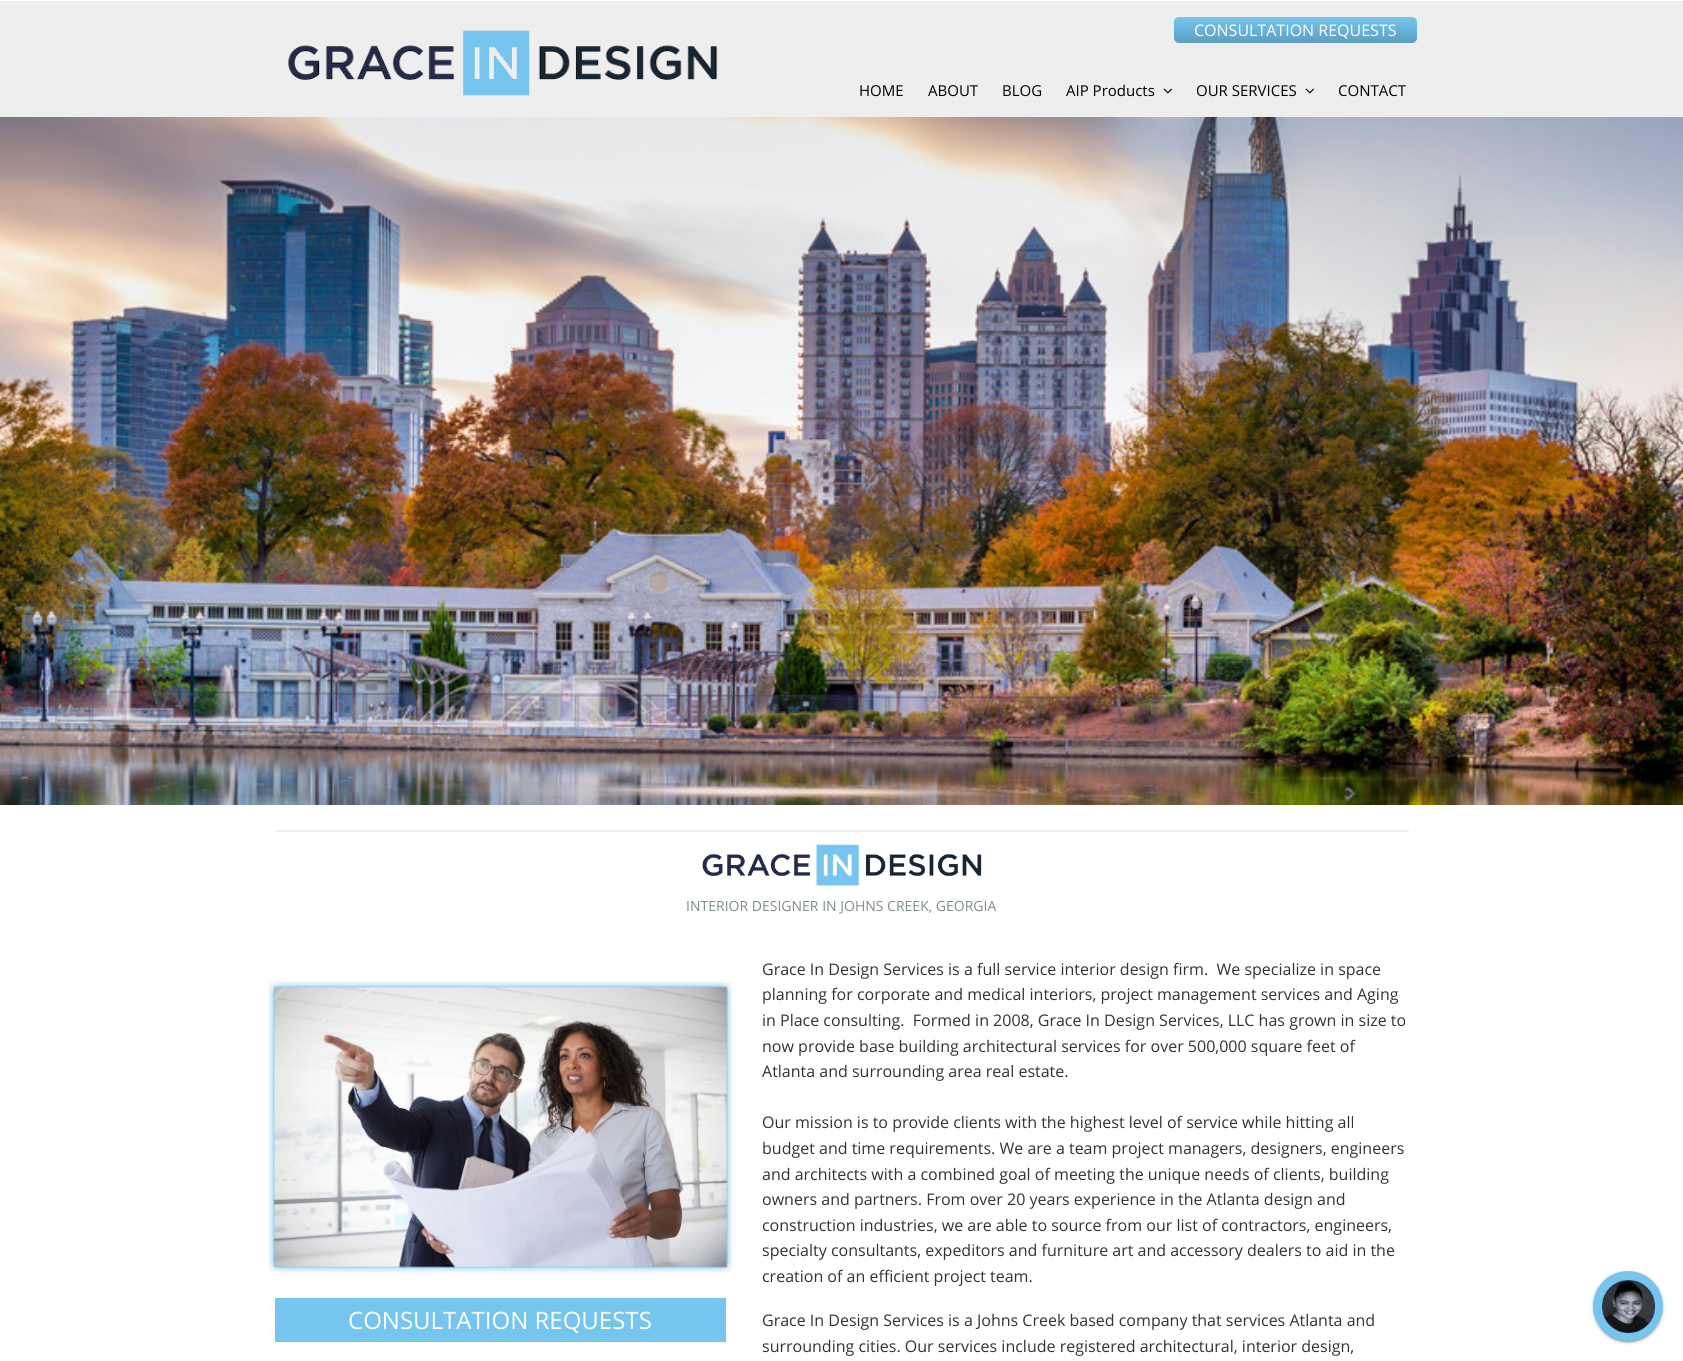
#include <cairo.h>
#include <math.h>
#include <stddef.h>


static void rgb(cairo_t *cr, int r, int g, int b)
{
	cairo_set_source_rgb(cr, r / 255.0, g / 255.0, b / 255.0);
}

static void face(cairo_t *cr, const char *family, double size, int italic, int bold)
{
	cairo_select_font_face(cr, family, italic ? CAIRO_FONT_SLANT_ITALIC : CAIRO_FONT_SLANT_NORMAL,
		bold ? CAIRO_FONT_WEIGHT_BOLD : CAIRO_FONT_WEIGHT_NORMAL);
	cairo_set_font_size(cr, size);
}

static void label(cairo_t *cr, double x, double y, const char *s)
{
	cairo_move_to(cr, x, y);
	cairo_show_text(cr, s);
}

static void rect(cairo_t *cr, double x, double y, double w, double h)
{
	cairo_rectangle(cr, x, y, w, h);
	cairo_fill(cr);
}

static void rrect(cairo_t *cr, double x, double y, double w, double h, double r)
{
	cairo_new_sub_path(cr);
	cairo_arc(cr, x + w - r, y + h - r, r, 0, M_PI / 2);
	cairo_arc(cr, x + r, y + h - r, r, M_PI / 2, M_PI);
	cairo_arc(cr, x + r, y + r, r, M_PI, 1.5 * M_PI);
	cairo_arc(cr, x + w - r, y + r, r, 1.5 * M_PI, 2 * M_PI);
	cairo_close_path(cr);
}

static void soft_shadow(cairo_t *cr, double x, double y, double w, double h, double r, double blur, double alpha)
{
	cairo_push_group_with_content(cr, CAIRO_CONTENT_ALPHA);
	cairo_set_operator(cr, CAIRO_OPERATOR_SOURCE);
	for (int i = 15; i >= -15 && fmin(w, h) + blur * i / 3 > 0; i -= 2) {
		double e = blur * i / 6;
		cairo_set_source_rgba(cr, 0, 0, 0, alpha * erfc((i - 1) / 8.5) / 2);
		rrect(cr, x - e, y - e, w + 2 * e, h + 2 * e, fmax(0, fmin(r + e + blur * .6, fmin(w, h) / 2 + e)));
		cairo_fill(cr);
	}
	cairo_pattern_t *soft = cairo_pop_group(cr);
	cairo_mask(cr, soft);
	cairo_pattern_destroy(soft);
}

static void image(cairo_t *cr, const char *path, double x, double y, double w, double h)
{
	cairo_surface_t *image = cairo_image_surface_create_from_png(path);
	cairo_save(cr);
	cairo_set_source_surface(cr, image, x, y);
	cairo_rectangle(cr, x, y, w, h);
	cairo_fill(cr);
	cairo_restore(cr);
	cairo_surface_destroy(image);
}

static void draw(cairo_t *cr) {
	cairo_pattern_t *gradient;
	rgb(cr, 255, 255, 255);
	cairo_paint(cr);
	rgb(cr, 238, 238, 238);
	rect(cr, 0, 1, 1683, 116);
	image(cr, "image0.png", 288, 30, 430, 66);
	gradient = cairo_pattern_create_linear(1296, 17, 1296, 43);
	cairo_pattern_add_color_stop_rgba(gradient, 0, 0.459, 0.773, 0.937, 1);
	cairo_pattern_add_color_stop_rgba(gradient, 1, 0.369, 0.62, 0.749, 1);
	cairo_set_source(cr, gradient);
	cairo_pattern_destroy(gradient);
	rrect(cr, 1174, 17, 243, 26, 5);
	cairo_fill(cr);
	face(cr, "Open Sans", 16, 0, 0);
	rgb(cr, 255, 255, 255);
	label(cr, 1194, 36, "CONSULTATION REQUESTS");
	face(cr, "Open Sans", 15, 0, 0);
	rgb(cr, 0, 0, 0);
	label(cr, 859, 96, "HOME");
	label(cr, 928, 96, "ABOUT");
	label(cr, 1002, 96, "BLOG");
	label(cr, 1066, 96, "AIP Products");
	image(cr, "image1.png", 1163, 88, 9, 6);
	label(cr, 1196, 96, "OUR SERVICES");
	image(cr, "image1.png", 1305, 88, 9, 6);
	label(cr, 1338, 96, "CONTACT");
	image(cr, "image2.png", 0, 117, 1683, 688);
	rgb(cr, 238, 238, 238);
	rect(cr, 275, 830, 1134, 2);
	image(cr, "image3.png", 702, 844, 280, 42);
	face(cr, "Open Sans", 14, 0, 0);
	rgb(cr, 127, 140, 141);
	label(cr, 686, 911, "INTERIOR DESIGNER IN JOHNS CREEK, GEORGIA");
	image(cr, "image4.png", 268, 981, 465, 292);
	rgb(cr, 117, 197, 239);
	rect(cr, 275, 1298, 451, 44);
	face(cr, "Open Sans", 24, 0, 0);
	rgb(cr, 255, 255, 255);
	label(cr, 348, 1329, "CONSULTATION REQUESTS");
	face(cr, "Open Sans", 16, 0, 0);
	rgb(cr, 51, 51, 51);
	label(cr, 762, 975, "Grace In Design Services is a full service interior design firm.  We specialize in space");
	label(cr, 762, 1000, "planning for corporate and medical interiors, project management services and Aging");
	label(cr, 762, 1026, "in Place consulting.  Formed in 2008, Grace In Design Services, LLC has grown in size to");
	label(cr, 762, 1052, "now provide base building architectural services for over 500,000 square feet of");
	label(cr, 762, 1077, "Atlanta and surrounding area real estate.");
	label(cr, 762, 1128, "Our mission is to provide clients with the highest level of service while hitting all");
	label(cr, 762, 1154, "budget and time requirements. We are a team project managers, designers, engineers");
	label(cr, 762, 1180, "and architects with a combined goal of meeting the unique needs of clients, building");
	label(cr, 762, 1205, "owners and partners. From over 20 years experience in the Atlanta design and");
	label(cr, 762, 1231, "construction industries, we are able to source from our list of contractors, engineers,");
	label(cr, 762, 1256, "specialty consultants, expeditors and furniture art and accessory dealers to aid in the");
	label(cr, 762, 1282, "creation of an efficient project team.");
	label(cr, 762, 1326, "Grace In Design Services is a Johns Creek based company that services Atlanta and");
	label(cr, 762, 1352, "surrounding cities. Our services include registered architectural, interior design,");
	rgb(cr, 0, 0, 0);
	soft_shadow(cr, 1595, 1276, 66, 66, 33, 0.5, 0.2);
	soft_shadow(cr, 1593, 1272, 70, 70, 35, 2.5, 0.12);
	soft_shadow(cr, 1593, 1273, 70, 70, 35, 1, 0.14);
	rgb(cr, 117, 197, 239);
	cairo_arc(cr, 1628, 1306, 35, 0, 2 * M_PI);
	cairo_fill(cr);
	image(cr, "image5.png", 1602, 1280, 53, 53);
}

int main(void) {
	cairo_surface_t *surface = cairo_image_surface_create(CAIRO_FORMAT_RGB24, 1683, 1361);
	cairo_t *cr = cairo_create(surface);
	cairo_font_options_t *options = cairo_font_options_create();
	cairo_font_options_set_hint_metrics(options, CAIRO_HINT_METRICS_OFF);
	cairo_font_options_set_hint_style(options, CAIRO_HINT_STYLE_NONE);
	cairo_set_font_options(cr, options);
	cairo_set_miter_limit(cr, 4);
	draw(cr);
	cairo_surface_write_to_png(surface, "render.png");
	cairo_font_options_destroy(options);
	cairo_destroy(cr);
	cairo_surface_destroy(surface);
	return 0;
}
